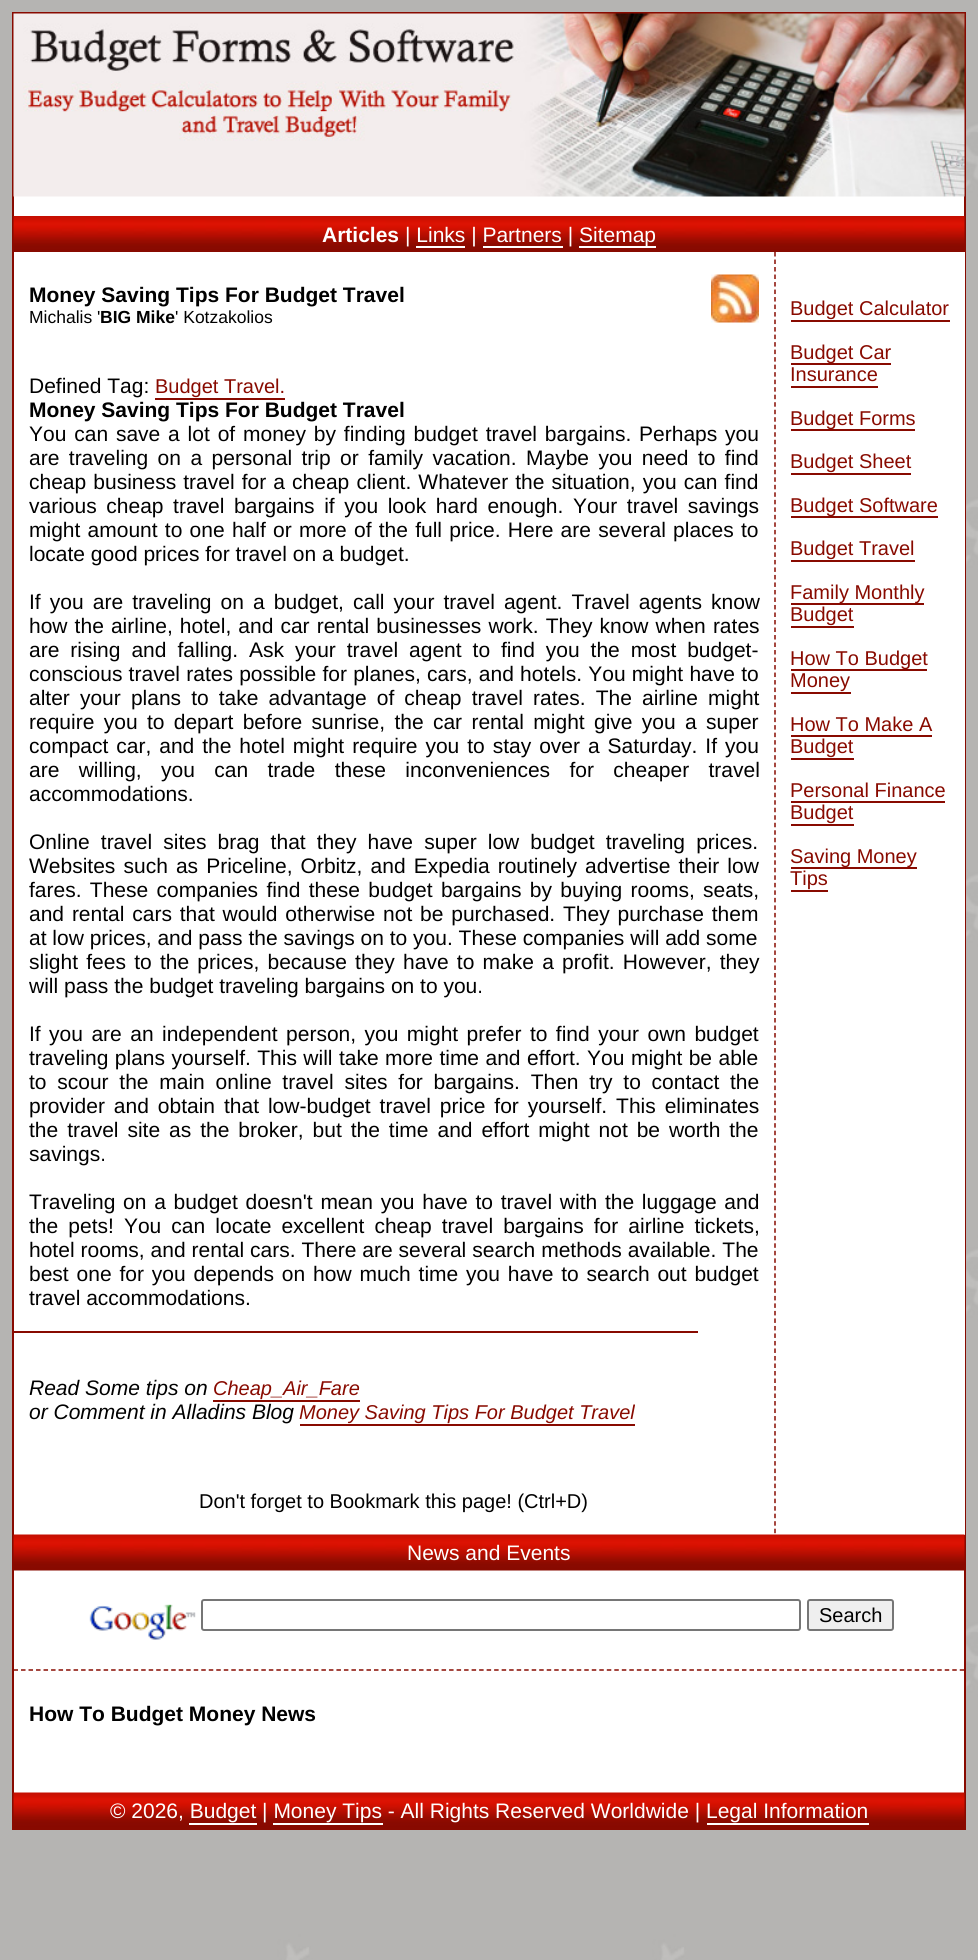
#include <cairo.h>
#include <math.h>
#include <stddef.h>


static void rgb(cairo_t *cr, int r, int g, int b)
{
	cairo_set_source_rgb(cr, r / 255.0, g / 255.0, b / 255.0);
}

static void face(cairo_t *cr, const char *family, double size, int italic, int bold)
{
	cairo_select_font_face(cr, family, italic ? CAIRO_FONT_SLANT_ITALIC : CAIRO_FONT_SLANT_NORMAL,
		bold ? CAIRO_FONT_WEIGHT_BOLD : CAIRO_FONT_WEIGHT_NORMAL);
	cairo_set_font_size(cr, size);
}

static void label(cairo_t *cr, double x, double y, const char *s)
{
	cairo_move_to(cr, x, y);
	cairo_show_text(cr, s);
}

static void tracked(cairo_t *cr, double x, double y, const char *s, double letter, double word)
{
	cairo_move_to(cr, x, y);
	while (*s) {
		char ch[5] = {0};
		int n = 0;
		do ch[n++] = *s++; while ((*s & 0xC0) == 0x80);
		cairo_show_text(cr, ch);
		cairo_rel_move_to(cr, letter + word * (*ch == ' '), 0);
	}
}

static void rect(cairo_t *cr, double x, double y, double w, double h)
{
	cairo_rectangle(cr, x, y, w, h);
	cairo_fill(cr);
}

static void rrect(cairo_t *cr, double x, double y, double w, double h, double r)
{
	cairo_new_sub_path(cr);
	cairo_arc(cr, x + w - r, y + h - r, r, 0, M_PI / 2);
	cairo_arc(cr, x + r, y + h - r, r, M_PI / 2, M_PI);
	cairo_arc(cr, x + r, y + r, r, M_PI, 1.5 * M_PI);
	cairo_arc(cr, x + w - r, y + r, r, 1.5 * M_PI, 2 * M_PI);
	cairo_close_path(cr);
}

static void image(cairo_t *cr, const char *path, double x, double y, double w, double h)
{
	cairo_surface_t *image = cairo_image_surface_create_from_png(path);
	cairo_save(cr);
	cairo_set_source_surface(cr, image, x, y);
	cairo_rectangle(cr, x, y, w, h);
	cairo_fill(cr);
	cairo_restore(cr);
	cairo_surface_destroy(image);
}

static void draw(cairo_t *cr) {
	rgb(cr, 255, 255, 255);
	cairo_paint(cr);
	image(cr, "image0.png", 0, 0, 978, 1960);
	rgb(cr, 255, 255, 255);
	rect(cr, 14, 196, 950, 1597);
	cairo_rectangle(cr, 13, 13, 952, 1816);
	rgb(cr, 136, 10, 0);
	cairo_stroke(cr);
	image(cr, "image1.png", 13, 13, 952, 184);
	image(cr, "image2.png", 13, 216, 952, 36);
	face(cr, "Liberation Sans", 21, 0, 1);
	rgb(cr, 255, 255, 255);
	label(cr, 322, 242, "Articles");
	face(cr, "Liberation Sans", 21, 0, 0);
	label(cr, 405, 242, "| Links | Partners |");
	rect(cr, 579, 246, 77, 2);
	label(cr, 579, 242, "Sitemap");
	rect(cr, 416, 246, 49, 2);
	rect(cr, 483, 246, 80, 2);
	image(cr, "image3.png", 711, 274, 48, 49);
	face(cr, "Liberation Sans", 21, 0, 1);
	rgb(cr, 0, 0, 0);
	label(cr, 29, 302, "Money Saving Tips For Budget Travel");
	face(cr, "Liberation Sans", 17.5, 0, 0);
	label(cr, 29, 323, "Michalis '");
	face(cr, "Liberation Sans", 17.5, 0, 1);
	label(cr, 100, 323, "BIG Mike");
	face(cr, "Liberation Sans", 17.5, 0, 0);
	label(cr, 175, 323, "' Kotzakolios");
	face(cr, "Liberation Sans", 21, 0, 0);
	label(cr, 29, 393, "Defined Tag:");
	face(cr, "Liberation Sans", 20, 0, 0);
	rgb(cr, 136, 10, 0);
	label(cr, 155, 393, "Budget Travel.");
	rect(cr, 155, 398, 130, 2);
	face(cr, "Liberation Sans", 21, 0, 1);
	rgb(cr, 0, 0, 0);
	label(cr, 29, 417, "Money Saving Tips For Budget Travel");
	face(cr, "Liberation Sans", 21, 0, 0);
	tracked(cr, 29, 441, "You can save a lot of money by finding budget travel bargains. Perhaps you", 0, 2);
	tracked(cr, 29, 465, "are traveling on a personal trip or family vacation. Maybe you need to find", 0, 3.6);
	tracked(cr, 29, 489, "cheap business travel for a cheap client. Whatever the situation, you can find", 0, 1.25);
	tracked(cr, 29, 513, "various cheap travel bargains if you look hard enough. Your travel savings", 0, 3.75);
	tracked(cr, 29, 537, "might amount to one half or more of the full price. Here are several places to", 0, 1.4);
	label(cr, 29, 561, "locate good prices for travel on a budget.");
	tracked(cr, 29, 609, "If you are traveling on a budget, call your travel agent. Travel agents know", 0, 3.25);
	tracked(cr, 29, 633, "how the airline, hotel, and car rental businesses work. They know when rates", 0, 1.25);
	tracked(cr, 29, 657, "are rising and falling. Ask your travel agent to find you the most budget-", 0, 5.1);
	tracked(cr, 29, 681, "conscious travel rates possible for planes, cars, and hotels. You might have to", 0, 0.4);
	tracked(cr, 29, 705, "alter your plans to take advantage of cheap travel rates. The airline might", 0, 4.25);
	tracked(cr, 29, 729, "require you to depart before sunrise, the car rental might give you a super", 0, 3.5);
	tracked(cr, 29, 753, "compact car, and the hotel might require you to stay over a Saturday. If you", 0, 2.1);
	tracked(cr, 29, 777, "are willing, you can trade these inconveniences for cheaper travel", 0, 13.5);
	label(cr, 29, 801, "accommodations.");
	tracked(cr, 29, 849, "Online travel sites brag that they have super low budget traveling prices.", 0, 5.25);
	tracked(cr, 29, 873, "Websites such as Priceline, Orbitz, and Expedia routinely advertise their low", 0, 2.25);
	tracked(cr, 29, 897, "fares. These companies find these budget bargains by buying rooms, seats,", 0, 2.5);
	tracked(cr, 29, 921, "and rental cars that would otherwise not be purchased. They purchase them", 0, 2);
	label(cr, 29, 945, "at low prices, and pass the savings on to you. These companies will add some");
	tracked(cr, 29, 969, "slight fees to the prices, because they have to make a profit. However, they", 0, 2.4);
	label(cr, 29, 993, "will pass the budget traveling bargains on to you.");
	tracked(cr, 29, 1041, "If you are an independent person, you might prefer to find your own budget", 0, 2.6);
	tracked(cr, 29, 1065, "traveling plans yourself. This will take more time and effort. You might be able", 0, 0.6);
	tracked(cr, 29, 1089, "to scour the main online travel sites for bargains. Then try to contact the", 0, 4.9);
	tracked(cr, 29, 1113, "provider and obtain that low-budget travel price for yourself. This eliminates", 0, 3.1);
	tracked(cr, 29, 1137, "the travel site as the broker, but the time and effort might not be worth the", 0, 3.1);
	label(cr, 29, 1161, "savings.");
	tracked(cr, 29, 1209, "Traveling on a budget doesn't mean you have to travel with the luggage and", 0, 1.9);
	tracked(cr, 29, 1233, "the pets! You can locate excellent cheap travel bargains for airline tickets,", 0, 4.25);
	tracked(cr, 29, 1257, "hotel rooms, and rental cars. There are several search methods available. The", 0, 0.1);
	tracked(cr, 29, 1281, "best one for you depends on how much time you have to search out budget", 0, 2);
	label(cr, 29, 1305, "travel accommodations.");
	rgb(cr, 136, 10, 0);
	rect(cr, 14, 1331, 684, 2);
	face(cr, "Liberation Sans", 21, 1, 0);
	rgb(cr, 0, 0, 0);
	label(cr, 29, 1395, "Read Some tips on");
	face(cr, "Liberation Sans", 20, 1, 0);
	rgb(cr, 136, 10, 0);
	label(cr, 213, 1395, "Cheap_Air_Fare");
	rect(cr, 213, 1400, 147, 2);
	face(cr, "Liberation Sans", 21, 1, 0);
	rgb(cr, 0, 0, 0);
	label(cr, 29, 1419, "or Comment in Alladins Blog");
	face(cr, "Liberation Sans", 20, 1, 0);
	rgb(cr, 136, 10, 0);
	label(cr, 299, 1419, "Money Saving Tips For Budget Travel");
	rect(cr, 300, 1424, 335, 2);
	face(cr, "Liberation Sans", 20, 0, 0);
	rgb(cr, 0, 0, 0);
	label(cr, 199, 1508, "Don't forget to Bookmark this page! (Ctrl+D)");
	rgb(cr, 255, 255, 255);
	rect(cr, 964, 252, 1, 1283);
	cairo_new_path(cr);
	cairo_move_to(cr, 775, 252);
	cairo_line_to(cr, 775, 1534.5);
	rgb(cr, 136, 10, 0);
	cairo_set_line_width(cr, 1.5);
	cairo_set_dash(cr, (double[]){4.5, 3.01}, 2, 0);
	cairo_stroke(cr);
	label(cr, 790, 315, "Budget Calculator");
	rect(cr, 791, 320, 159, 2);
	rect(cr, 791, 363, 100, 2);
	label(cr, 790, 359, "Budget Car");
	label(cr, 790, 381, "Insurance");
	rect(cr, 791, 386, 87, 2);
	rect(cr, 791, 429, 124, 2);
	label(cr, 790, 425, "Budget Forms");
	label(cr, 790, 468, "Budget Sheet");
	rect(cr, 791, 473, 120, 2);
	rect(cr, 791, 516, 147, 2);
	label(cr, 790, 512, "Budget Software");
	label(cr, 790, 555, "Budget Travel");
	rect(cr, 791, 560, 124, 2);
	rect(cr, 791, 603, 133, 2);
	label(cr, 790, 599, "Family Monthly");
	label(cr, 790, 621, "Budget");
	rect(cr, 791, 626, 63, 2);
	rect(cr, 791, 669, 136, 2);
	label(cr, 790, 665, "How To Budget");
	label(cr, 790, 687, "Money");
	rect(cr, 791, 692, 60, 2);
	label(cr, 790, 731, "How To Make A");
	rect(cr, 791, 735, 141, 2);
	label(cr, 790, 753, "Budget");
	rect(cr, 791, 758, 63, 2);
	label(cr, 790, 797, "Personal Finance");
	rect(cr, 791, 801, 154, 2);
	label(cr, 790, 819, "Budget");
	rect(cr, 791, 824, 63, 2);
	rect(cr, 791, 867, 126, 2);
	label(cr, 790, 863, "Saving Money");
	label(cr, 790, 885, "Tips");
	rect(cr, 791, 890, 37, 2);
	image(cr, "image4.png", 13, 1534, 952, 37);
	face(cr, "Liberation Sans", 21, 0, 0);
	rgb(cr, 255, 255, 255);
	label(cr, 407, 1560, "News and Events");
	image(cr, "image5.png", 89, 1604, 107, 36);
	rrect(cr, 202, 1600, 598, 30, 2);
	rgb(cr, 118, 118, 118);
	cairo_set_line_width(cr, 2);
	cairo_set_dash(cr, NULL, 0, 0);
	cairo_stroke(cr);
	rgb(cr, 239, 239, 239);
	rrect(cr, 808, 1600, 85, 30, 2);
	cairo_fill_preserve(cr);
	rgb(cr, 118, 118, 118);
	cairo_stroke(cr);
	face(cr, "Liberation Sans", 20, 0, 0);
	rgb(cr, 0, 0, 0);
	label(cr, 819, 1622, "Search");
	cairo_new_path(cr);
	cairo_move_to(cr, 13.5, 1670);
	cairo_line_to(cr, 964.5, 1670);
	rgb(cr, 136, 10, 0);
	cairo_set_line_width(cr, 1.5);
	cairo_set_dash(cr, (double[]){4.5, 3.01}, 2, 0);
	cairo_stroke(cr);
	face(cr, "Liberation Sans", 21, 0, 1);
	rgb(cr, 0, 0, 0);
	label(cr, 29, 1721, "How To Budget Money News");
	image(cr, "image6.png", 13, 1792, 952, 36);
	face(cr, "Liberation Sans", 21, 0, 0);
	rgb(cr, 255, 255, 255);
	label(cr, 110, 1818, "© 2026, Budget | Money Tips - All Rights Reserved Worldwide | Legal Information");
	rect(cr, 189, 1823, 68, 2);
	rect(cr, 273, 1823, 110, 2);
	rect(cr, 707, 1823, 162, 2);
}

int main(void) {
	cairo_surface_t *surface = cairo_image_surface_create(CAIRO_FORMAT_RGB24, 978, 1960);
	cairo_t *cr = cairo_create(surface);
	cairo_font_options_t *options = cairo_font_options_create();
	cairo_font_options_set_hint_metrics(options, CAIRO_HINT_METRICS_OFF);
	cairo_font_options_set_hint_style(options, CAIRO_HINT_STYLE_NONE);
	cairo_set_font_options(cr, options);
	cairo_set_miter_limit(cr, 4);
	draw(cr);
	cairo_surface_write_to_png(surface, "render.png");
	cairo_font_options_destroy(options);
	cairo_destroy(cr);
	cairo_surface_destroy(surface);
	return 0;
}
